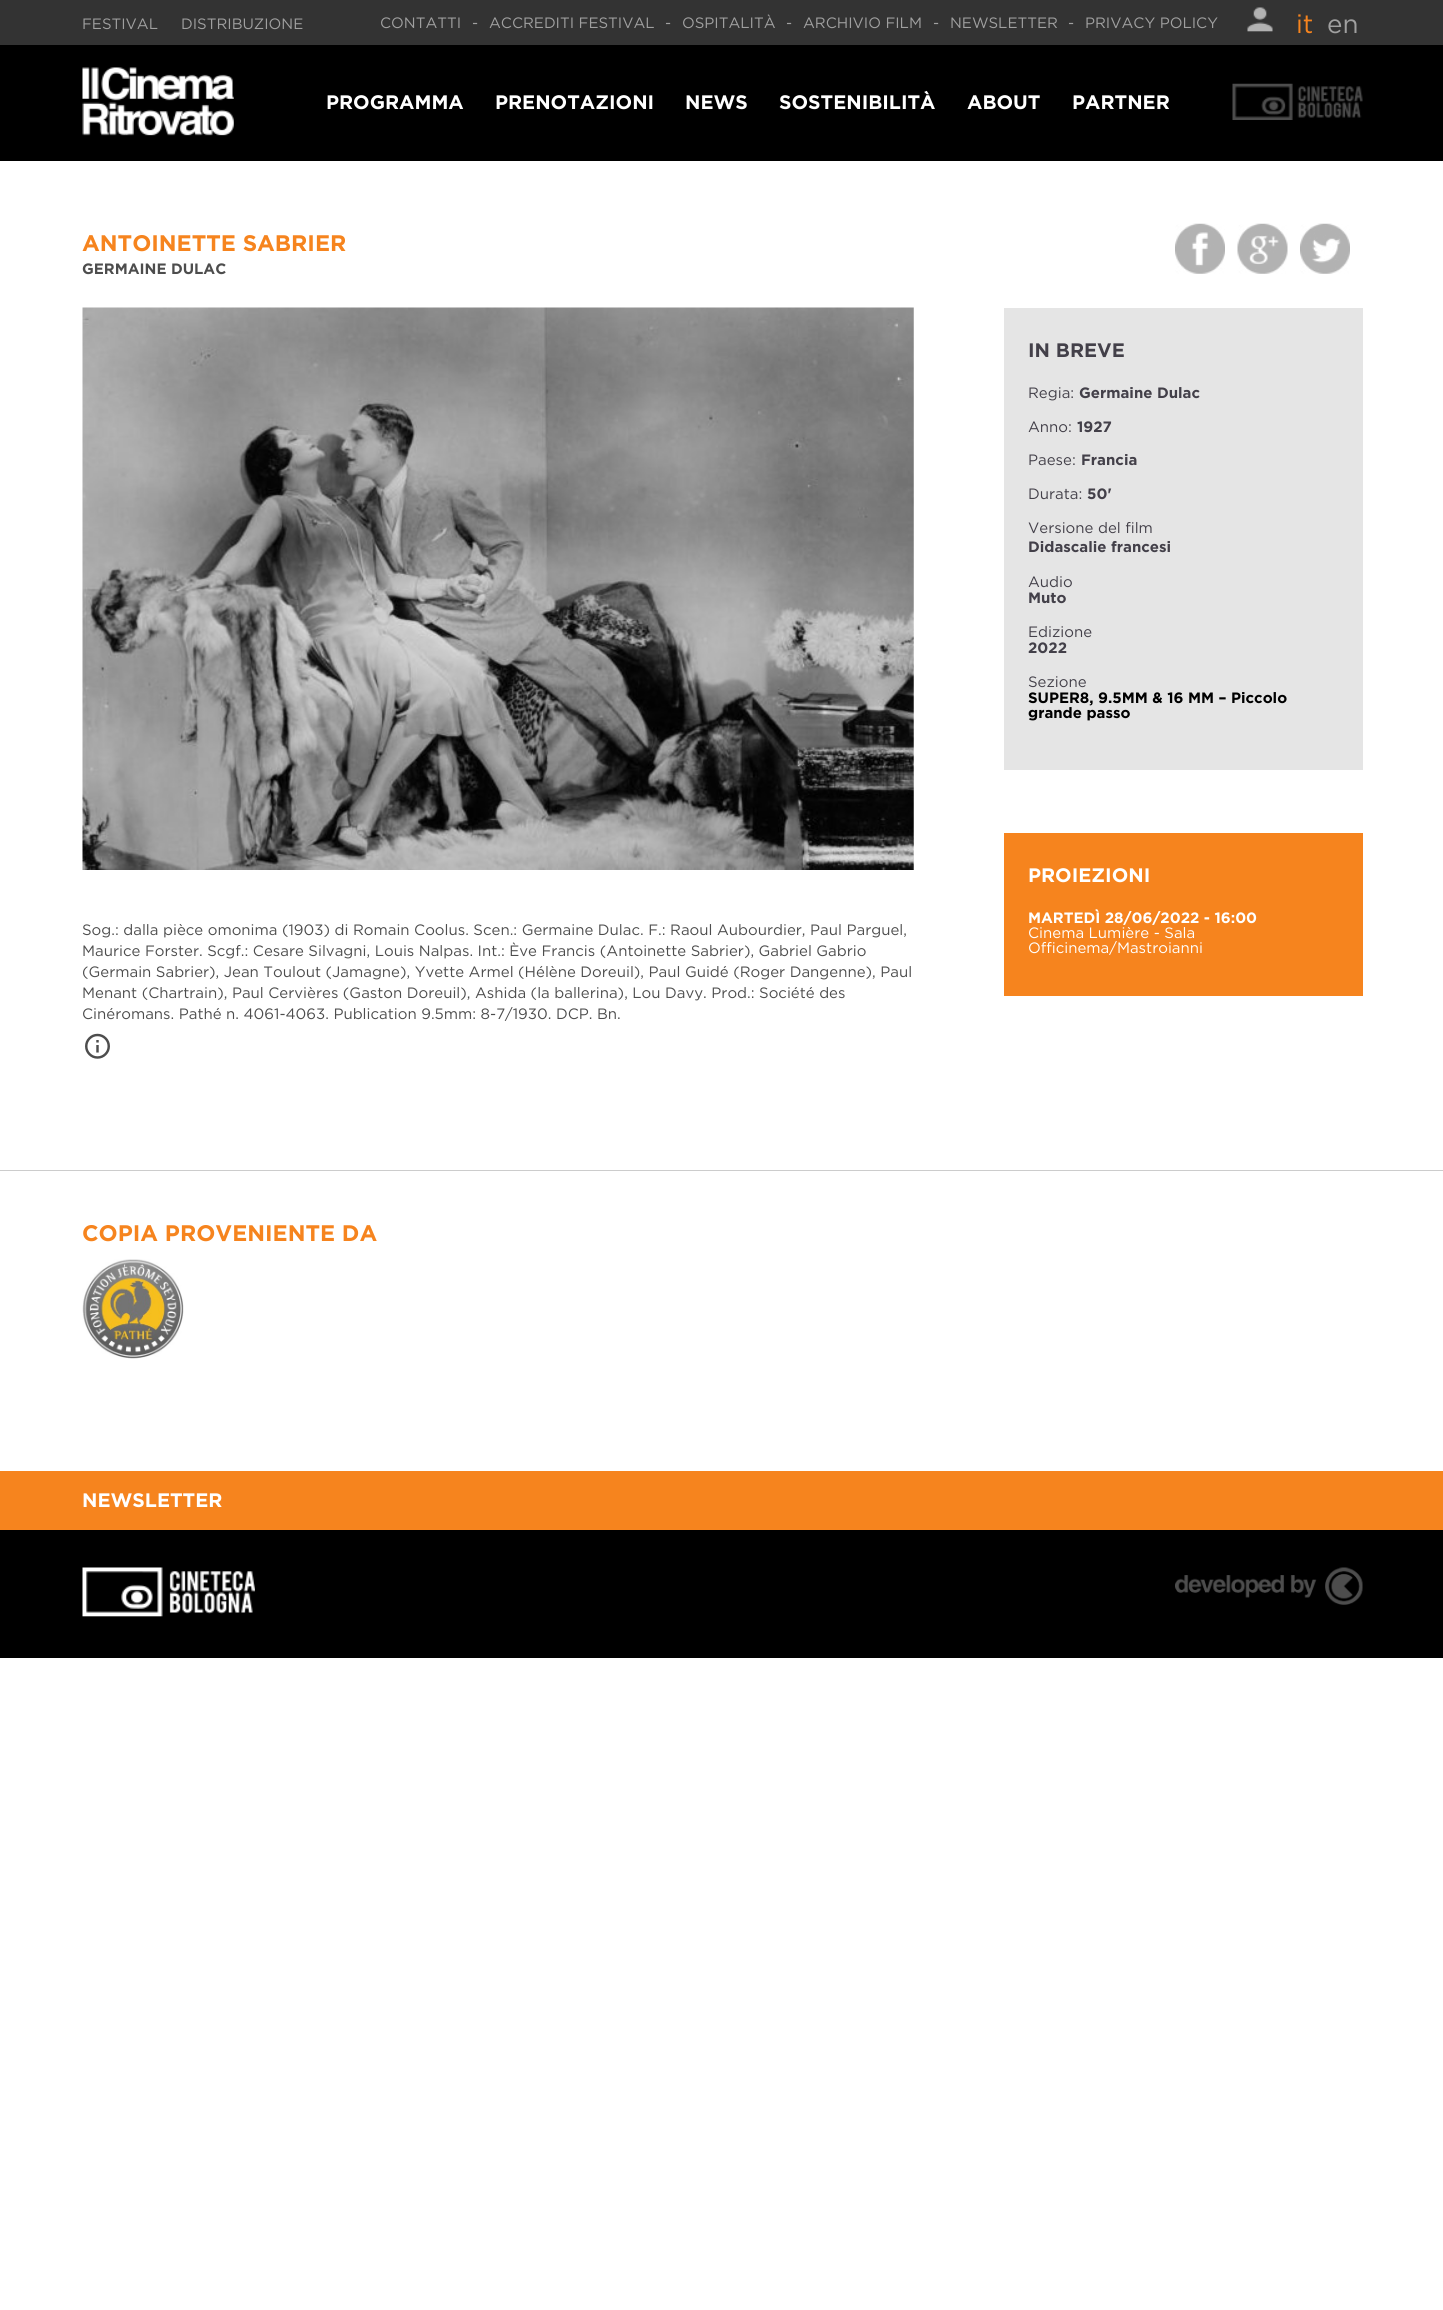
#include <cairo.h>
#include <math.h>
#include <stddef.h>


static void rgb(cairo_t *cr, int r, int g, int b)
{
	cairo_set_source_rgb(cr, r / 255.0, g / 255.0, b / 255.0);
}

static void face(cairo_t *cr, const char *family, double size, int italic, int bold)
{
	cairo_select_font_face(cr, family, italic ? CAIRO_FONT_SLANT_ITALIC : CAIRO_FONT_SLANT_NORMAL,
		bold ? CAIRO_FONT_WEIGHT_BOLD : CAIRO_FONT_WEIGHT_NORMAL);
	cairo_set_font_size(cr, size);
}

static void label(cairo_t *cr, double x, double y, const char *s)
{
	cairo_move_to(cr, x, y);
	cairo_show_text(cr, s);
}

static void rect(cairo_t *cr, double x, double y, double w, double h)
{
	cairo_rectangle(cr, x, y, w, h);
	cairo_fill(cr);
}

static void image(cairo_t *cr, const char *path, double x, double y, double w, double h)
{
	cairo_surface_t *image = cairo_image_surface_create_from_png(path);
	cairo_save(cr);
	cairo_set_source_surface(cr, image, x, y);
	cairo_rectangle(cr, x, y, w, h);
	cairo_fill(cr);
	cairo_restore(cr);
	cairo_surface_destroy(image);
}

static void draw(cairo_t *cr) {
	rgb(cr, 255, 255, 255);
	cairo_paint(cr);
	rgb(cr, 51, 51, 51);
	rect(cr, 0, 0, 1443, 45);
	face(cr, "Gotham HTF", 15, 0, 0);
	rgb(cr, 160, 160, 160);
	label(cr, 82, 29, "FESTIVAL");
	label(cr, 181, 29, "DISTRIBUZIONE");
	label(cr, 380, 28, "CONTATTI");
	label(cr, 472, 28, "-");
	label(cr, 489, 28, "ACCREDITI FESTIVAL");
	label(cr, 665, 28, "-");
	label(cr, 682, 28, "OSPITALITÀ");
	label(cr, 786, 28, "-");
	label(cr, 803, 28, "ARCHIVIO FILM");
	label(cr, 933, 28, "-");
	label(cr, 950, 28, "NEWSLETTER");
	label(cr, 1068, 28, "-");
	label(cr, 1085, 28, "PRIVACY POLICY");
	image(cr, "image0.png", 1247, 7, 26, 25);
	face(cr, "Gotham HTF", 26, 0, 0);
	rgb(cr, 246, 132, 30);
	label(cr, 1296, 33, "it");
	rgb(cr, 160, 160, 160);
	label(cr, 1327, 33, "en");
	rgb(cr, 0, 0, 0);
	rect(cr, 0, 45, 1443, 116);
	image(cr, "image1.png", 82, 67, 152, 69);
	face(cr, "Gotham", 19.5, 0, 1);
	rgb(cr, 255, 255, 255);
	label(cr, 326, 109, "PROGRAMMA");
	label(cr, 495, 109, "PRENOTAZIONI");
	label(cr, 685, 109, "NEWS");
	label(cr, 779, 109, "SOSTENIBILITÀ");
	label(cr, 967, 109, "ABOUT");
	label(cr, 1072, 109, "PARTNER");
	image(cr, "image2.png", 1232, 83, 131, 37);
	face(cr, "Gotham", 22.5, 0, 1);
	rgb(cr, 246, 132, 30);
	label(cr, 82, 251, "ANTOINETTE SABRIER");
	face(cr, "Gotham", 15, 0, 1);
	rgb(cr, 77, 77, 77);
	label(cr, 82, 274, "GERMAINE DULAC");
	image(cr, "image3.png", 1175, 223, 50, 51);
	image(cr, "image4.png", 1237, 223, 51, 51);
	image(cr, "image5.png", 1300, 223, 50, 51);
	rgb(cr, 229, 229, 229);
	rect(cr, 1004, 308, 359, 462);
	face(cr, "Gotham", 19.5, 0, 1);
	rgb(cr, 67, 64, 73);
	label(cr, 1028, 357, "IN BREVE");
	face(cr, "Gotham HTF", 15, 0, 0);
	label(cr, 1028, 398, "Regia:");
	face(cr, "Gotham", 15, 0, 1);
	label(cr, 1079, 398, "Germaine Dulac");
	face(cr, "Gotham HTF", 15, 0, 0);
	label(cr, 1028, 432, "Anno:");
	face(cr, "Gotham", 15, 0, 1);
	label(cr, 1077, 432, "1927");
	face(cr, "Gotham HTF", 15, 0, 0);
	label(cr, 1028, 465, "Paese:");
	face(cr, "Gotham", 15, 0, 1);
	label(cr, 1081, 465, "Francia");
	face(cr, "Gotham HTF", 15, 0, 0);
	label(cr, 1028, 499, "Durata:");
	face(cr, "Gotham", 15, 0, 1);
	label(cr, 1087, 499, "50'");
	face(cr, "Gotham HTF", 15, 0, 0);
	label(cr, 1028, 533, "Versione del film");
	face(cr, "Gotham", 15, 0, 1);
	label(cr, 1028, 552, "Didascalie francesi");
	face(cr, "Gotham HTF", 15, 0, 0);
	label(cr, 1028, 587, "Audio");
	face(cr, "Gotham", 15, 0, 1);
	label(cr, 1028, 603, "Muto");
	face(cr, "Gotham HTF", 15, 0, 0);
	label(cr, 1028, 637, "Edizione");
	face(cr, "Gotham", 15, 0, 1);
	label(cr, 1028, 653, "2022");
	face(cr, "Gotham HTF", 15, 0, 0);
	label(cr, 1028, 687, "Sezione");
	face(cr, "Gotham", 15, 0, 1);
	rgb(cr, 0, 0, 0);
	label(cr, 1028, 703, "SUPER8, 9.5MM & 16 MM – Piccolo");
	label(cr, 1028, 718, "grande passo");
	rgb(cr, 246, 132, 30);
	rect(cr, 1004, 833, 359, 163);
	face(cr, "Gotham", 19.5, 0, 1);
	rgb(cr, 255, 255, 255);
	label(cr, 1028, 882, "PROIEZIONI");
	face(cr, "Gotham", 15, 0, 1);
	label(cr, 1028, 923, "MARTEDÌ 28/06/2022 - 16:00");
	face(cr, "Gotham HTF", 15, 0, 0);
	label(cr, 1028, 938, "Cinema Lumière - Sala");
	label(cr, 1028, 953, "Officinema/Mastroianni");
	image(cr, "image6.png", 82, 307, 832, 563);
	rgb(cr, 77, 77, 77);
	label(cr, 82, 935, "Sog.: dalla pièce omonima (1903) di Romain Coolus. Scen.: Germaine Dulac. F.: Raoul Aubourdier, Paul Parguel,");
	label(cr, 82, 956, "Maurice Forster. Scgf.: Cesare Silvagni, Louis Nalpas. Int.: Ève Francis (Antoinette Sabrier), Gabriel Gabrio");
	label(cr, 82, 977, "(Germain Sabrier), Jean Toulout (Jamagne), Yvette Armel (Hélène Doreuil), Paul Guidé (Roger Dangenne), Paul");
	label(cr, 82, 998, "Menant (Chartrain), Paul Cervières (Gaston Doreuil), Ashida (la ballerina), Lou Davy. Prod.: Société des");
	label(cr, 82, 1019, "Cinéromans. Pathé n. 4061-4063. Publication 9.5mm: 8-7/1930. DCP. Bn.");
	image(cr, "image7.png", 85, 1033, 25, 26);
	rgb(cr, 204, 204, 204);
	rect(cr, 0, 1170, 1443, 1);
	face(cr, "Gotham", 22.5, 0, 1);
	rgb(cr, 246, 132, 30);
	label(cr, 82, 1241, "COPIA PROVENIENTE DA");
	image(cr, "image8.png", 82, 1259, 102, 100);
	rect(cr, 0, 1471, 1443, 59);
	face(cr, "Gotham", 19.5, 0, 1);
	rgb(cr, 255, 255, 255);
	label(cr, 82, 1507, "NEWSLETTER");
	rgb(cr, 0, 0, 0);
	rect(cr, 0, 1530, 1443, 128);
	image(cr, "image9.png", 82, 1567, 173, 50);
	image(cr, "image10.png", 1175, 1567, 188, 38);
}

int main(void) {
	cairo_surface_t *surface = cairo_image_surface_create(CAIRO_FORMAT_RGB24, 1443, 2310);
	cairo_t *cr = cairo_create(surface);
	cairo_font_options_t *options = cairo_font_options_create();
	cairo_font_options_set_hint_metrics(options, CAIRO_HINT_METRICS_OFF);
	cairo_font_options_set_hint_style(options, CAIRO_HINT_STYLE_NONE);
	cairo_set_font_options(cr, options);
	cairo_set_miter_limit(cr, 4);
	draw(cr);
	cairo_surface_write_to_png(surface, "render.png");
	cairo_font_options_destroy(options);
	cairo_destroy(cr);
	cairo_surface_destroy(surface);
	return 0;
}
